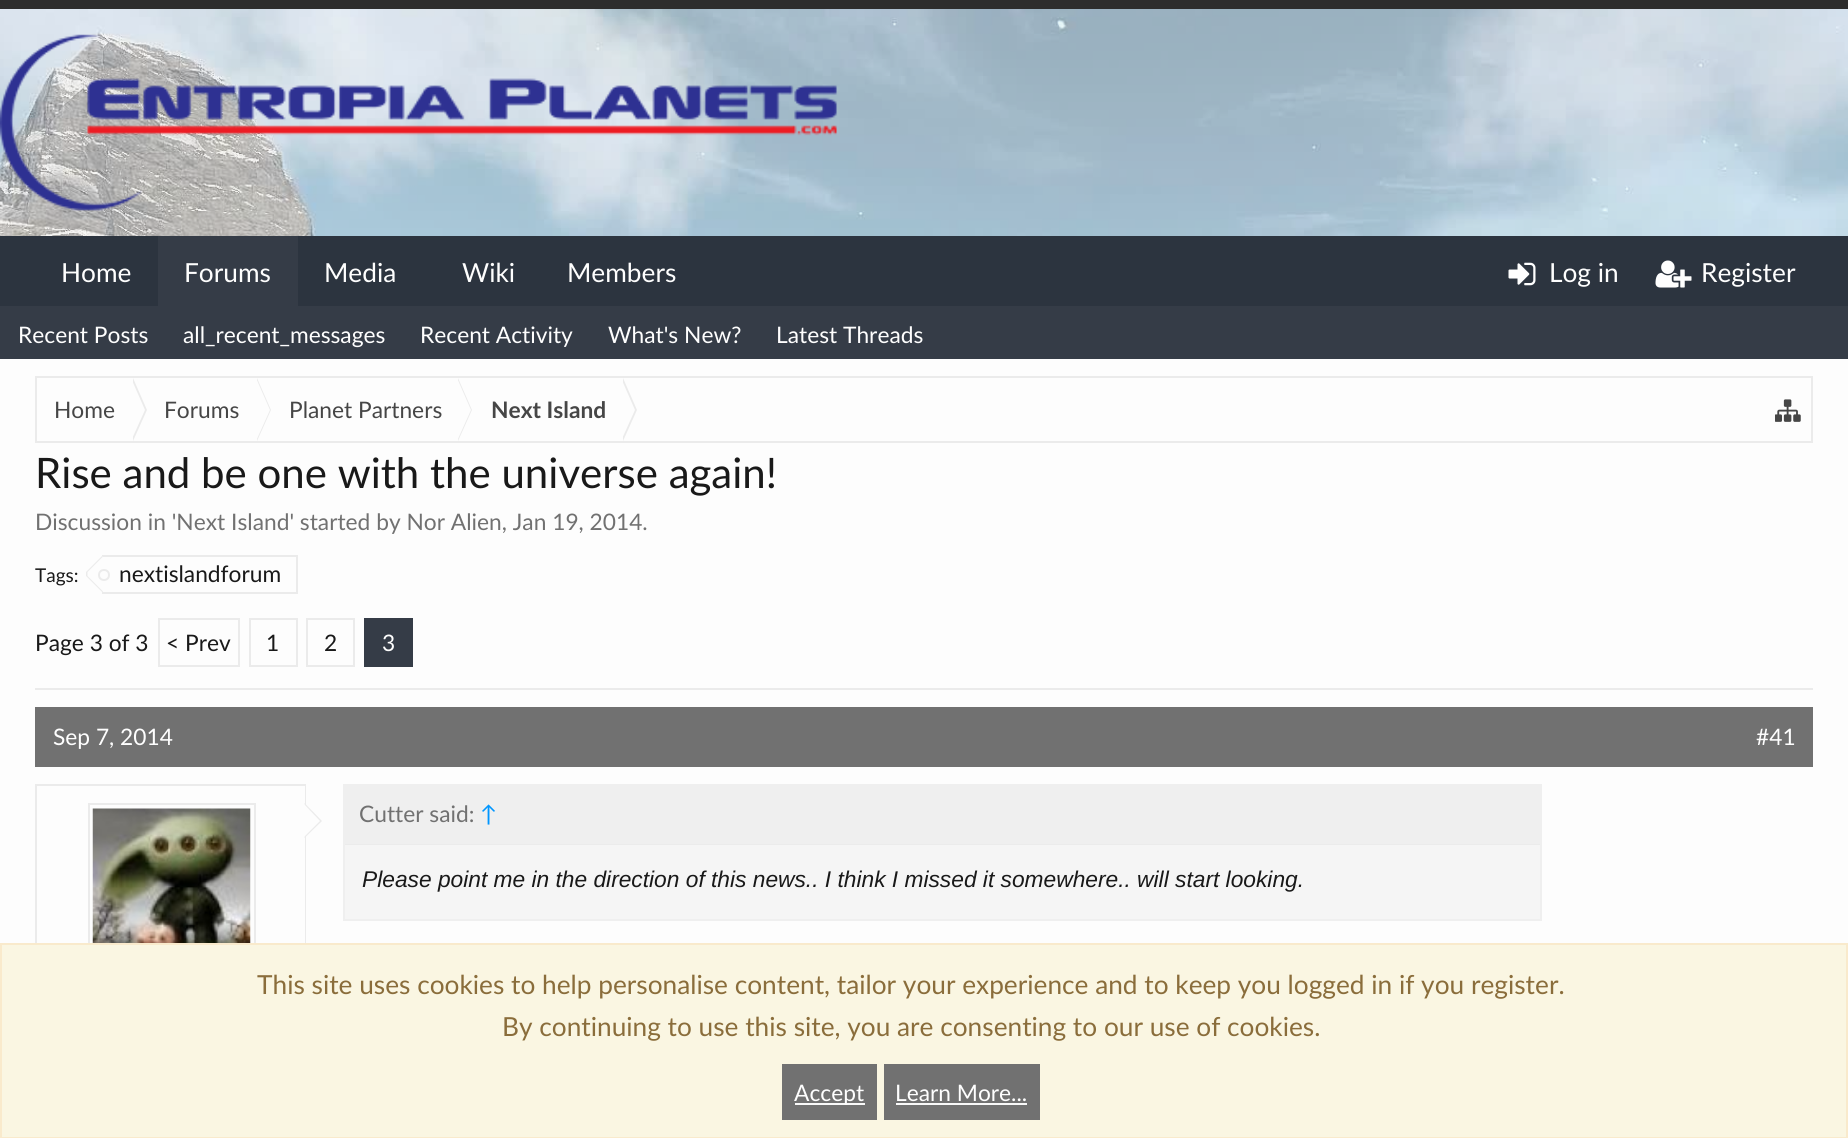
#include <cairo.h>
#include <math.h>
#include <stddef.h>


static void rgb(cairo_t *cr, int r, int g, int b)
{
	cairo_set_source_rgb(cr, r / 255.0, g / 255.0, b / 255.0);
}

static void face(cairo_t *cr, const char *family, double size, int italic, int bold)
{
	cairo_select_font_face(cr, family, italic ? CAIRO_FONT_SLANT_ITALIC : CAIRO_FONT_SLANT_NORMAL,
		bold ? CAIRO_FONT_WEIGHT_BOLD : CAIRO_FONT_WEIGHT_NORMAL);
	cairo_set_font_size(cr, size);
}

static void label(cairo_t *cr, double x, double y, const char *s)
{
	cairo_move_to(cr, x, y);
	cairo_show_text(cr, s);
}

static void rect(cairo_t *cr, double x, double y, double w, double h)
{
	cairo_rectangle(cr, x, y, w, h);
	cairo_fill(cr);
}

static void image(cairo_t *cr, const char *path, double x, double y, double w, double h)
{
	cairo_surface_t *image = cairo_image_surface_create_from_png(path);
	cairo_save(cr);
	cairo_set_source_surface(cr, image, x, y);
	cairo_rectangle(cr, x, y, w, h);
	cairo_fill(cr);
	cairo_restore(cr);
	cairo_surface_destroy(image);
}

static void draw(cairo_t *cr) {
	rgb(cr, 240, 240, 240);
	cairo_paint(cr);
	image(cr, "image0.png", 0, 9, 1848, 227);
	rgb(cr, 45, 45, 45);
	rect(cr, 0, 0, 1848, 9);
	image(cr, "image1.png", 0, 34, 837, 177);
	rgb(cr, 44, 52, 63);
	rect(cr, 0, 236, 1848, 70);
	face(cr, "Lato", 26.25, 0, 0);
	rgb(cr, 254, 254, 254);
	label(cr, 324, 282, "Media");
	label(cr, 462, 282, "Wiki");
	label(cr, 567, 282, "Members");
	rgb(cr, 53, 60, 71);
	rect(cr, 158, 236, 140, 70);
	rgb(cr, 254, 254, 254);
	label(cr, 184, 282, "Forums");
	rgb(cr, 53, 60, 71);
	rect(cr, 0, 306, 1848, 53);
	face(cr, "Lato", 22.75, 0, 0);
	rgb(cr, 254, 254, 254);
	label(cr, 18, 343, "Recent Posts");
	label(cr, 183, 343, "all_recent_messages");
	label(cr, 420, 343, "Recent Activity");
	label(cr, 608, 343, "What's New?");
	label(cr, 776, 343, "Latest Threads");
	face(cr, "Lato", 26.25, 0, 0);
	label(cr, 61, 282, "Home");
	image(cr, "image2.png", 1508, 262, 28, 24);
	label(cr, 1549, 282, "Log in");
	image(cr, "image3.png", 1655, 260, 37, 28);
	label(cr, 1701, 282, "Register");
	rgb(cr, 253, 253, 253);
	rect(cr, 0, 359, 1848, 584);
	cairo_rectangle(cr, 36, 377, 1776, 65);
	rgb(cr, 235, 235, 235);
	cairo_stroke(cr);
	face(cr, "Lato", 22.75, 0, 0);
	rgb(cr, 70, 70, 70);
	label(cr, 54, 418, "Home");
	rgb(cr, 235, 235, 235);
	cairo_new_path(cr);
	cairo_move_to(cr, 133, 441);
	cairo_line_to(cr, 133, 378);
	cairo_line_to(cr, 147, 410);
	cairo_close_path(cr);
	cairo_fill(cr);
	rgb(cr, 253, 253, 253);
	cairo_new_path(cr);
	cairo_move_to(cr, 131, 441);
	cairo_line_to(cr, 131, 378);
	cairo_line_to(cr, 145, 410);
	cairo_close_path(cr);
	cairo_fill(cr);
	rgb(cr, 70, 70, 70);
	label(cr, 164, 418, "Forums");
	rgb(cr, 235, 235, 235);
	cairo_new_path(cr);
	cairo_move_to(cr, 257, 441);
	cairo_line_to(cr, 257, 378);
	cairo_line_to(cr, 271, 410);
	cairo_close_path(cr);
	cairo_fill(cr);
	rgb(cr, 253, 253, 253);
	cairo_new_path(cr);
	cairo_move_to(cr, 256, 441);
	cairo_line_to(cr, 256, 378);
	cairo_line_to(cr, 270, 410);
	cairo_close_path(cr);
	cairo_fill(cr);
	rgb(cr, 70, 70, 70);
	label(cr, 289, 418, "Planet Partners");
	rgb(cr, 235, 235, 235);
	cairo_new_path(cr);
	cairo_move_to(cr, 458, 441);
	cairo_line_to(cr, 458, 378);
	cairo_line_to(cr, 472, 410);
	cairo_close_path(cr);
	cairo_fill(cr);
	rgb(cr, 253, 253, 253);
	cairo_new_path(cr);
	cairo_move_to(cr, 457, 441);
	cairo_line_to(cr, 457, 378);
	cairo_line_to(cr, 471, 410);
	cairo_close_path(cr);
	cairo_fill(cr);
	face(cr, "Lato", 22.75, 0, 1);
	rgb(cr, 70, 70, 70);
	label(cr, 491, 418, "Next Island");
	rgb(cr, 235, 235, 235);
	cairo_new_path(cr);
	cairo_move_to(cr, 623, 441);
	cairo_line_to(cr, 623, 378);
	cairo_line_to(cr, 637, 410);
	cairo_close_path(cr);
	cairo_fill(cr);
	rgb(cr, 253, 253, 253);
	cairo_new_path(cr);
	cairo_move_to(cr, 621, 441);
	cairo_line_to(cr, 621, 378);
	cairo_line_to(cr, 635, 410);
	cairo_close_path(cr);
	cairo_fill(cr);
	image(cr, "image4.png", 1775, 399, 26, 23);
	face(cr, "Lato", 42, 0, 0);
	rgb(cr, 25, 25, 25);
	label(cr, 35, 488, "Rise and be one with the universe again!");
	face(cr, "Lato", 22.75, 0, 0);
	rgb(cr, 113, 113, 113);
	label(cr, 35, 530, "Discussion in 'Next Island' started by Nor Alien, Jan 19, 2014.");
	face(cr, "Lato", 19, 0, 0);
	rgb(cr, 25, 25, 25);
	label(cr, 35, 582, "Tags:");
	rgb(cr, 235, 235, 235);
	rect(cr, 102, 555, 196, 2);
	rect(cr, 296, 555, 2, 38);
	rect(cr, 102, 592, 196, 2);
	cairo_new_path(cr);
	cairo_move_to(cr, 103, 555);
	cairo_line_to(cr, 103, 593);
	cairo_line_to(cr, 86, 576);
	cairo_line_to(cr, 86, 572);
	cairo_close_path(cr);
	cairo_fill(cr);
	rgb(cr, 253, 253, 253);
	cairo_new_path(cr);
	cairo_move_to(cr, 103, 556.5);
	cairo_line_to(cr, 103, 591.5);
	cairo_line_to(cr, 87.5, 576);
	cairo_line_to(cr, 87.5, 572);
	cairo_close_path(cr);
	cairo_fill(cr);
	cairo_arc(cr, 104, 575, 5, 0, 2 * M_PI);
	rgb(cr, 235, 235, 235);
	cairo_stroke(cr);
	face(cr, "Lato", 22.75, 0, 0);
	rgb(cr, 25, 25, 25);
	label(cr, 119, 582, "nextislandforum");
	label(cr, 35, 651, "Page 3 of 3");
	cairo_rectangle(cr, 159, 619, 80, 47);
	rgb(cr, 235, 235, 235);
	cairo_stroke(cr);
	rgb(cr, 25, 25, 25);
	label(cr, 166, 651, "< Prev");
	cairo_rectangle(cr, 250, 619, 47, 47);
	rgb(cr, 235, 235, 235);
	cairo_stroke(cr);
	rgb(cr, 25, 25, 25);
	label(cr, 266, 651, "1");
	cairo_rectangle(cr, 307, 619, 47, 47);
	rgb(cr, 235, 235, 235);
	cairo_stroke(cr);
	rgb(cr, 25, 25, 25);
	label(cr, 324, 651, "2");
	rgb(cr, 53, 60, 71);
	rect(cr, 364, 618, 49, 49);
	rgb(cr, 254, 254, 254);
	label(cr, 382, 651, "3");
	rgb(cr, 235, 235, 235);
	rect(cr, 35, 688, 1778, 2);
	rgb(cr, 113, 113, 113);
	rect(cr, 35, 707, 1778, 60);
	rgb(cr, 254, 254, 254);
	label(cr, 53, 745, "Sep 7, 2014");
	label(cr, 1756, 745, "#41");
	cairo_rectangle(cr, 36, 785, 269, 303);
	rgb(cr, 235, 235, 235);
	cairo_stroke(cr);
	rgb(cr, 253, 253, 253);
	rect(cr, 304, 786, 1, 157);
	cairo_rectangle(cr, 89, 804, 166, 166);
	rgb(cr, 235, 235, 235);
	cairo_stroke(cr);
	image(cr, "image5.png", 92, 808, 159, 135);
	cairo_new_path(cr);
	cairo_move_to(cr, 304.5, 838);
	cairo_line_to(cr, 304.5, 803);
	cairo_line_to(cr, 322, 821);
	cairo_close_path(cr);
	cairo_fill(cr);
	rgb(cr, 253, 253, 253);
	cairo_new_path(cr);
	cairo_move_to(cr, 303, 838);
	cairo_line_to(cr, 303, 803);
	cairo_line_to(cr, 320, 821);
	cairo_close_path(cr);
	cairo_fill(cr);
	cairo_rectangle(cr, 344, 785, 1197, 135);
	rgb(cr, 239, 239, 239);
	cairo_stroke(cr);
	rect(cr, 345, 786, 1195, 58);
	rgb(cr, 235, 235, 235);
	rect(cr, 345, 844, 1195, 1);
	rgb(cr, 113, 113, 113);
	label(cr, 359, 822, "Cutter said:");
	rgb(cr, 0, 150, 255);
	label(cr, 480, 822, "↑");
	rgb(cr, 245, 245, 245);
	rect(cr, 345, 845, 1195, 74);
	face(cr, "Liberation Sans", 22.75, 1, 0);
	rgb(cr, 25, 25, 25);
	label(cr, 362, 887, "Please point me in the direction of this news.. I think I missed it somewhere.. will start looking.");
	rgb(cr, 250, 246, 226);
	cairo_rectangle(cr, 1, 944, 1846, 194);
	cairo_fill_preserve(cr);
	rgb(cr, 249, 234, 204);
	cairo_stroke(cr);
	face(cr, "Lato", 26.25, 0, 0);
	rgb(cr, 138, 109, 59);
	label(cr, 257, 994, "This site uses cookies to help personalise content, tailor your experience and to keep you logged in if you register.");
	label(cr, 502, 1036, "By continuing to use this site, you are consenting to our use of cookies.");
	rgb(cr, 113, 113, 113);
	rect(cr, 782, 1064, 95, 56);
	rgb(cr, 249, 249, 249);
	rect(cr, 795, 1103, 70, 2);
	face(cr, "Lato", 22.75, 0, 0);
	rgb(cr, 254, 254, 254);
	label(cr, 794, 1101, "Accept");
	rgb(cr, 113, 113, 113);
	rect(cr, 884, 1064, 156, 56);
	rgb(cr, 254, 254, 254);
	label(cr, 895, 1101, "Learn More...");
	rgb(cr, 249, 249, 249);
	rect(cr, 896, 1103, 131, 2);
}

int main(void) {
	cairo_surface_t *surface = cairo_image_surface_create(CAIRO_FORMAT_RGB24, 1848, 1138);
	cairo_t *cr = cairo_create(surface);
	cairo_font_options_t *options = cairo_font_options_create();
	cairo_font_options_set_hint_metrics(options, CAIRO_HINT_METRICS_OFF);
	cairo_font_options_set_hint_style(options, CAIRO_HINT_STYLE_NONE);
	cairo_set_font_options(cr, options);
	cairo_set_miter_limit(cr, 4);
	draw(cr);
	cairo_surface_write_to_png(surface, "render.png");
	cairo_font_options_destroy(options);
	cairo_destroy(cr);
	cairo_surface_destroy(surface);
	return 0;
}
